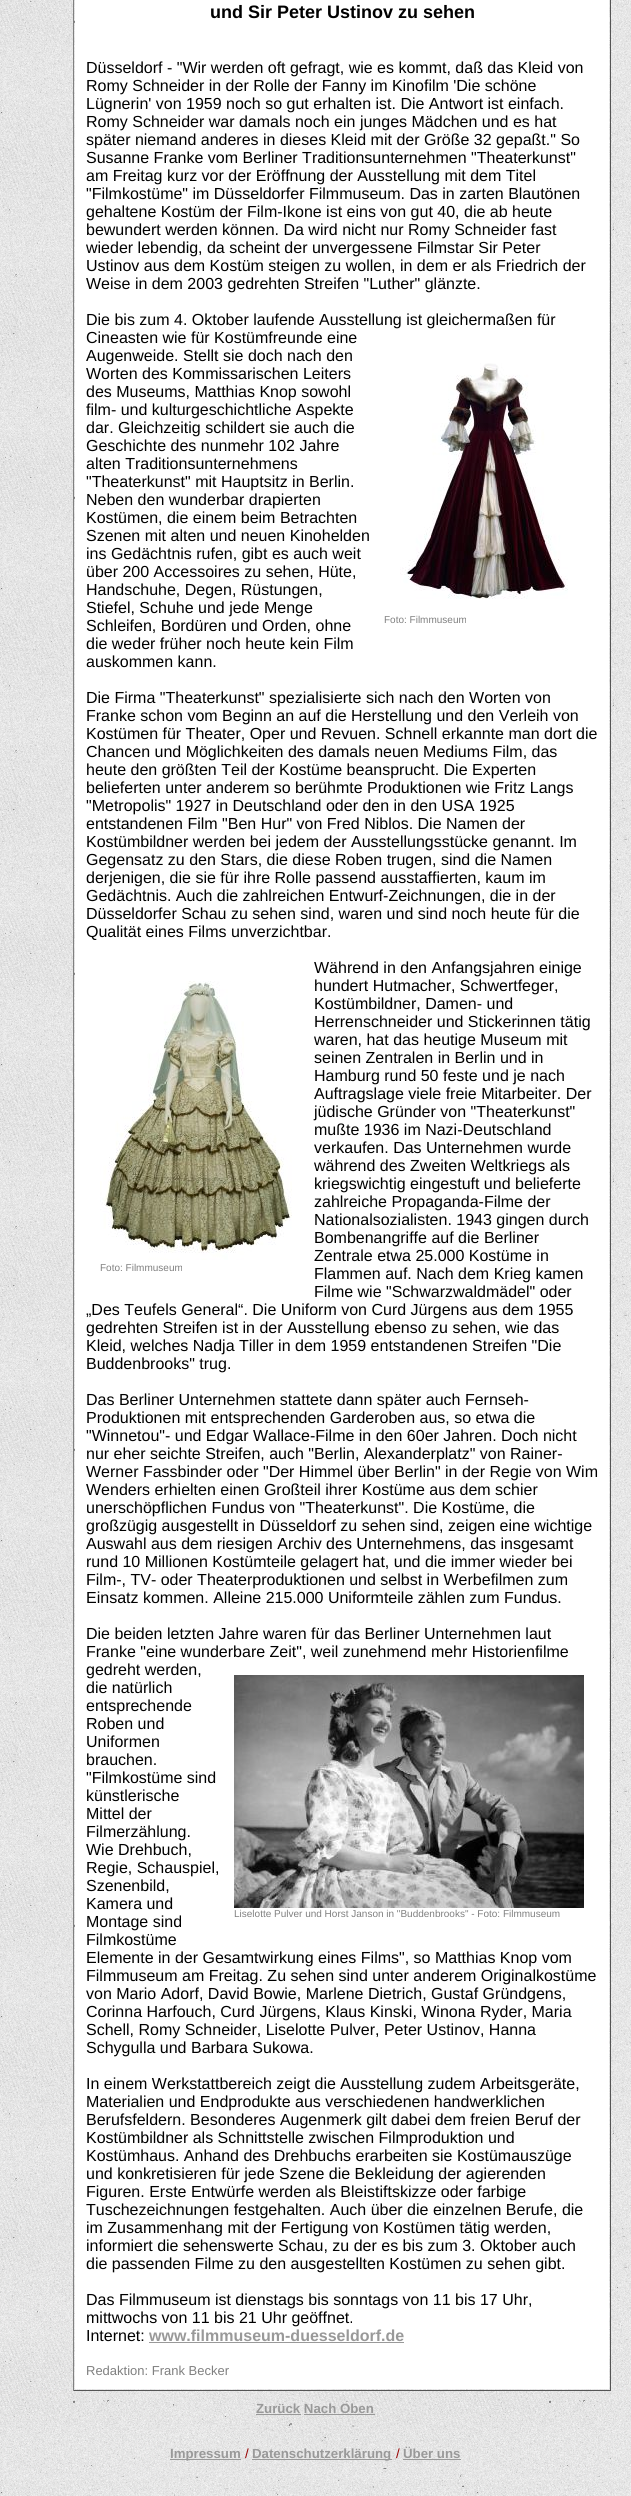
#include <cairo.h>
#include <math.h>
#include <stddef.h>


static void rgb(cairo_t *cr, int r, int g, int b)
{
	cairo_set_source_rgb(cr, r / 255.0, g / 255.0, b / 255.0);
}

static void face(cairo_t *cr, const char *family, double size, int italic, int bold)
{
	cairo_select_font_face(cr, family, italic ? CAIRO_FONT_SLANT_ITALIC : CAIRO_FONT_SLANT_NORMAL,
		bold ? CAIRO_FONT_WEIGHT_BOLD : CAIRO_FONT_WEIGHT_NORMAL);
	cairo_set_font_size(cr, size);
}

static void label(cairo_t *cr, double x, double y, const char *s)
{
	cairo_move_to(cr, x, y);
	cairo_show_text(cr, s);
}

static void rect(cairo_t *cr, double x, double y, double w, double h)
{
	cairo_rectangle(cr, x, y, w, h);
	cairo_fill(cr);
}

static void image(cairo_t *cr, const char *path, double x, double y, double w, double h)
{
	cairo_surface_t *image = cairo_image_surface_create_from_png(path);
	cairo_save(cr);
	cairo_set_source_surface(cr, image, x, y);
	cairo_rectangle(cr, x, y, w, h);
	cairo_fill(cr);
	cairo_restore(cr);
	cairo_surface_destroy(image);
}

static void draw(cairo_t *cr) {
	rgb(cr, 255, 255, 255);
	cairo_paint(cr);
	image(cr, "image0.png", 0, 0, 631, 2496);
	rgb(cr, 85, 85, 85);
	rect(cr, 610, 0, 1, 2391);
	rect(cr, 73, 2390, 538, 1);
	rgb(cr, 128, 128, 128);
	rect(cr, 73, 0, 1, 2391);
	rgb(cr, 255, 255, 255);
	rect(cr, 75, 0, 534, 2389);
	face(cr, "Liberation Sans", 18, 0, 1);
	rgb(cr, 0, 0, 0);
	label(cr, 210, 18, "und Sir Peter Ustinov zu sehen");
	face(cr, "Liberation Sans", 16, 0, 0);
	label(cr, 86, 73, "Düsseldorf - \"Wir werden oft gefragt, wie es kommt, daß das Kleid von");
	label(cr, 86, 91, "Romy Schneider in der Rolle der Fanny im Kinofilm 'Die schöne");
	label(cr, 86, 109, "Lügnerin' von 1959 noch so gut erhalten ist. Die Antwort ist einfach.");
	label(cr, 86, 127, "Romy Schneider war damals noch ein junges Mädchen und es hat");
	label(cr, 86, 145, "später niemand anderes in dieses Kleid mit der Größe 32 gepaßt.\" So");
	label(cr, 86, 163, "Susanne Franke vom Berliner Traditionsunternehmen \"Theaterkunst\"");
	label(cr, 86, 181, "am Freitag kurz vor der Eröffnung der Ausstellung mit dem Titel");
	label(cr, 86, 199, "\"Filmkostüme\" im Düsseldorfer Filmmuseum. Das in zarten Blautönen");
	label(cr, 86, 217, "gehaltene Kostüm der Film-Ikone ist eins von gut 40, die ab heute");
	label(cr, 86, 235, "bewundert werden können. Da wird nicht nur Romy Schneider fast");
	label(cr, 86, 253, "wieder lebendig, da scheint der unvergessene Filmstar Sir Peter");
	label(cr, 86, 271, "Ustinov aus dem Kostüm steigen zu wollen, in dem er als Friedrich der");
	label(cr, 86, 289, "Weise in dem 2003 gedrehten Streifen \"Luther\" glänzte.");
	label(cr, 86, 325, "Die bis zum 4. Oktober laufende Ausstellung ist gleichermaßen für");
	label(cr, 86, 343, "Cineasten wie für Kostümfreunde eine");
	label(cr, 86, 361, "Augenweide. Stellt sie doch nach den");
	label(cr, 86, 379, "Worten des Kommissarischen Leiters");
	label(cr, 86, 397, "des Museums, Matthias Knop sowohl");
	label(cr, 86, 415, "film- und kulturgeschichtliche Aspekte");
	label(cr, 86, 433, "dar. Gleichzeitig schildert sie auch die");
	label(cr, 86, 451, "Geschichte des nunmehr 102 Jahre");
	label(cr, 86, 469, "alten Traditionsunternehmens");
	label(cr, 86, 487, "\"Theaterkunst\" mit Hauptsitz in Berlin.");
	label(cr, 86, 505, "Neben den wunderbar drapierten");
	label(cr, 86, 523, "Kostümen, die einem beim Betrachten");
	label(cr, 86, 541, "Szenen mit alten und neuen Kinohelden");
	label(cr, 86, 559, "ins Gedächtnis rufen, gibt es auch weit");
	label(cr, 86, 577, "über 200 Accessoires zu sehen, Hüte,");
	label(cr, 86, 595, "Handschuhe, Degen, Rüstungen,");
	label(cr, 86, 613, "Stiefel, Schuhe und jede Menge");
	label(cr, 86, 631, "Schleifen, Bordüren und Orden, ohne");
	image(cr, "image1.png", 400, 363, 168, 236);
	face(cr, "Liberation Sans", 10, 0, 0);
	rgb(cr, 128, 128, 128);
	label(cr, 384, 623, "Foto: Filmmuseum");
	face(cr, "Liberation Sans", 16, 0, 0);
	rgb(cr, 0, 0, 0);
	label(cr, 86, 649, "die weder früher noch heute kein Film");
	label(cr, 86, 667, "auskommen kann.");
	label(cr, 86, 703, "Die Firma \"Theaterkunst\" spezialisierte sich nach den Worten von");
	label(cr, 86, 721, "Franke schon vom Beginn an auf die Herstellung und den Verleih von");
	label(cr, 86, 739, "Kostümen für Theater, Oper und Revuen. Schnell erkannte man dort die");
	label(cr, 86, 757, "Chancen und Möglichkeiten des damals neuen Mediums Film, das");
	label(cr, 86, 775, "heute den größten Teil der Kostüme beansprucht. Die Experten");
	label(cr, 86, 793, "belieferten unter anderem so berühmte Produktionen wie Fritz Langs");
	label(cr, 86, 811, "\"Metropolis\" 1927 in Deutschland oder den in den USA 1925");
	label(cr, 86, 829, "entstandenen Film \"Ben Hur\" von Fred Niblos. Die Namen der");
	label(cr, 86, 847, "Kostümbildner werden bei jedem der Ausstellungsstücke genannt. Im");
	label(cr, 86, 865, "Gegensatz zu den Stars, die diese Roben trugen, sind die Namen");
	label(cr, 86, 883, "derjenigen, die sie für ihre Rolle passend ausstaffierten, kaum im");
	label(cr, 86, 901, "Gedächtnis. Auch die zahlreichen Entwurf-Zeichnungen, die in der");
	label(cr, 86, 919, "Düsseldorfer Schau zu sehen sind, waren und sind noch heute für die");
	label(cr, 86, 937, "Qualität eines Films unverzichtbar.");
	label(cr, 314, 973, "Während in den Anfangsjahren einige");
	label(cr, 314, 991, "hundert Hutmacher, Schwertfeger,");
	label(cr, 314, 1009, "Kostümbildner, Damen- und");
	label(cr, 314, 1027, "Herrenschneider und Stickerinnen tätig");
	label(cr, 314, 1045, "waren, hat das heutige Museum mit");
	label(cr, 314, 1063, "seinen Zentralen in Berlin und in");
	label(cr, 314, 1081, "Hamburg rund 50 feste und je nach");
	label(cr, 314, 1099, "Auftragslage viele freie Mitarbeiter. Der");
	label(cr, 314, 1117, "jüdische Gründer von \"Theaterkunst\"");
	label(cr, 314, 1135, "mußte 1936 im Nazi-Deutschland");
	label(cr, 314, 1153, "verkaufen. Das Unternehmen wurde");
	label(cr, 314, 1171, "während des Zweiten Weltkriegs als");
	label(cr, 314, 1189, "kriegswichtig eingestuft und belieferte");
	label(cr, 314, 1207, "zahlreiche Propaganda-Filme der");
	label(cr, 314, 1225, "Nationalsozialisten. 1943 gingen durch");
	label(cr, 314, 1243, "Bombenangriffe auf die Berliner");
	label(cr, 314, 1261, "Zentrale etwa 25.000 Kostüme in");
	image(cr, "image2.png", 100, 981, 192, 279);
	face(cr, "Liberation Sans", 10, 0, 0);
	rgb(cr, 128, 128, 128);
	label(cr, 100, 1271, "Foto: Filmmuseum");
	face(cr, "Liberation Sans", 16, 0, 0);
	rgb(cr, 0, 0, 0);
	label(cr, 314, 1279, "Flammen auf. Nach dem Krieg kamen");
	label(cr, 314, 1297, "Filme wie \"Schwarzwaldmädel\" oder");
	label(cr, 86, 1315, "„Des Teufels General“. Die Uniform von Curd Jürgens aus dem 1955");
	label(cr, 86, 1333, "gedrehten Streifen ist in der Ausstellung ebenso zu sehen, wie das");
	label(cr, 86, 1351, "Kleid, welches Nadja Tiller in dem 1959 entstandenen Streifen \"Die");
	label(cr, 86, 1369, "Buddenbrooks\" trug.");
	label(cr, 86, 1405, "Das Berliner Unternehmen stattete dann später auch Fernseh-");
	label(cr, 86, 1423, "Produktionen mit entsprechenden Garderoben aus, so etwa die");
	label(cr, 86, 1441, "\"Winnetou\"- und Edgar Wallace-Filme in den 60er Jahren. Doch nicht");
	label(cr, 86, 1459, "nur eher seichte Streifen, auch \"Berlin, Alexanderplatz\" von Rainer-");
	label(cr, 86, 1477, "Werner Fassbinder oder \"Der Himmel über Berlin\" in der Regie von Wim");
	label(cr, 86, 1495, "Wenders erhielten einen Großteil ihrer Kostüme aus dem schier");
	label(cr, 86, 1513, "unerschöpflichen Fundus von \"Theaterkunst\". Die Kostüme, die");
	label(cr, 86, 1531, "großzügig ausgestellt in Düsseldorf zu sehen sind, zeigen eine wichtige");
	label(cr, 86, 1549, "Auswahl aus dem riesigen Archiv des Unternehmens, das insgesamt");
	label(cr, 86, 1567, "rund 10 Millionen Kostümteile gelagert hat, und die immer wieder bei");
	label(cr, 86, 1585, "Film-, TV- oder Theaterproduktionen und selbst in Werbefilmen zum");
	label(cr, 86, 1603, "Einsatz kommen. Alleine 215.000 Uniformteile zählen zum Fundus.");
	label(cr, 86, 1639, "Die beiden letzten Jahre waren für das Berliner Unternehmen laut");
	label(cr, 86, 1657, "Franke \"eine wunderbare Zeit\", weil zunehmend mehr Historienfilme");
	label(cr, 86, 1675, "gedreht werden,");
	label(cr, 86, 1693, "die natürlich");
	label(cr, 86, 1711, "entsprechende");
	label(cr, 86, 1729, "Roben und");
	label(cr, 86, 1747, "Uniformen");
	label(cr, 86, 1765, "brauchen.");
	label(cr, 86, 1783, "\"Filmkostüme sind");
	label(cr, 86, 1801, "künstlerische");
	label(cr, 86, 1819, "Mittel der");
	label(cr, 86, 1837, "Filmerzählung.");
	label(cr, 86, 1855, "Wie Drehbuch,");
	label(cr, 86, 1873, "Regie, Schauspiel,");
	label(cr, 86, 1891, "Szenenbild,");
	label(cr, 86, 1909, "Kamera und");
	image(cr, "image3.png", 234, 1675, 350, 233);
	face(cr, "Liberation Sans", 10, 0, 0);
	rgb(cr, 128, 128, 128);
	label(cr, 234, 1917, "Liselotte Pulver und Horst Janson in \"Buddenbrooks\" - Foto: Filmmuseum");
	face(cr, "Liberation Sans", 16, 0, 0);
	rgb(cr, 0, 0, 0);
	label(cr, 86, 1927, "Montage sind");
	label(cr, 86, 1945, "Filmkostüme");
	label(cr, 86, 1963, "Elemente in der Gesamtwirkung eines Films\", so Matthias Knop vom");
	label(cr, 86, 1981, "Filmmuseum am Freitag. Zu sehen sind unter anderem Originalkostüme");
	label(cr, 86, 1999, "von Mario Adorf, David Bowie, Marlene Dietrich, Gustaf Gründgens,");
	label(cr, 86, 2017, "Corinna Harfouch, Curd Jürgens, Klaus Kinski, Winona Ryder, Maria");
	label(cr, 86, 2035, "Schell, Romy Schneider, Liselotte Pulver, Peter Ustinov, Hanna");
	label(cr, 86, 2053, "Schygulla und Barbara Sukowa.");
	label(cr, 86, 2089, "In einem Werkstattbereich zeigt die Ausstellung zudem Arbeitsgeräte,");
	label(cr, 86, 2107, "Materialien und Endprodukte aus verschiedenen handwerklichen");
	label(cr, 86, 2125, "Berufsfeldern. Besonderes Augenmerk gilt dabei dem freien Beruf der");
	label(cr, 86, 2143, "Kostümbildner als Schnittstelle zwischen Filmproduktion und");
	label(cr, 86, 2161, "Kostümhaus. Anhand des Drehbuchs erarbeiten sie Kostümauszüge");
	label(cr, 86, 2179, "und konkretisieren für jede Szene die Bekleidung der agierenden");
	label(cr, 86, 2197, "Figuren. Erste Entwürfe werden als Bleistiftskizze oder farbige");
	label(cr, 86, 2215, "Tuschezeichnungen festgehalten. Auch über die einzelnen Berufe, die");
	label(cr, 86, 2233, "im Zusammenhang mit der Fertigung von Kostümen tätig werden,");
	label(cr, 86, 2251, "informiert die sehenswerte Schau, zu der es bis zum 3. Oktober auch");
	label(cr, 86, 2269, "die passenden Filme zu den ausgestellten Kostümen zu sehen gibt.");
	label(cr, 86, 2305, "Das Filmmuseum ist dienstags bis sonntags von 11 bis 17 Uhr,");
	label(cr, 86, 2323, "mittwochs von 11 bis 21 Uhr geöffnet.");
	label(cr, 86, 2341, "Internet:");
	face(cr, "Liberation Sans", 16, 0, 1);
	rgb(cr, 153, 153, 153);
	label(cr, 149, 2341, "www.filmmuseum-duesseldorf.de");
	rect(cr, 149, 2342, 255, 1);
	face(cr, "Liberation Sans", 13, 0, 0);
	rgb(cr, 128, 128, 128);
	label(cr, 86, 2375, "Redaktion: Frank Becker");
	face(cr, "Liberation Sans", 13.25, 0, 1);
	rgb(cr, 153, 153, 153);
	label(cr, 256, 2413, "Zurück Nach Oben");
	rect(cr, 256, 2414, 45, 1);
	rect(cr, 304, 2414, 71, 1);
	rect(cr, 170, 2459, 71, 1);
	label(cr, 170, 2458, "Impressum");
	face(cr, "Liberation Sans", 13.25, 0, 0);
	rgb(cr, 153, 0, 0);
	label(cr, 245, 2458, "/");
	rgb(cr, 153, 153, 153);
	rect(cr, 252, 2459, 140, 1);
	face(cr, "Liberation Sans", 13.25, 0, 1);
	label(cr, 252, 2458, "Datenschutzerklärung");
	face(cr, "Liberation Sans", 13.25, 0, 0);
	rgb(cr, 153, 0, 0);
	label(cr, 396, 2458, "/");
	face(cr, "Liberation Sans", 13.25, 0, 1);
	rgb(cr, 153, 153, 153);
	label(cr, 403, 2458, "Über uns");
	rect(cr, 403, 2459, 58, 1);
}

int main(void) {
	cairo_surface_t *surface = cairo_image_surface_create(CAIRO_FORMAT_RGB24, 631, 2496);
	cairo_t *cr = cairo_create(surface);
	cairo_font_options_t *options = cairo_font_options_create();
	cairo_font_options_set_hint_metrics(options, CAIRO_HINT_METRICS_OFF);
	cairo_font_options_set_hint_style(options, CAIRO_HINT_STYLE_NONE);
	cairo_set_font_options(cr, options);
	cairo_set_miter_limit(cr, 4);
	draw(cr);
	cairo_surface_write_to_png(surface, "render.png");
	cairo_font_options_destroy(options);
	cairo_destroy(cr);
	cairo_surface_destroy(surface);
	return 0;
}
